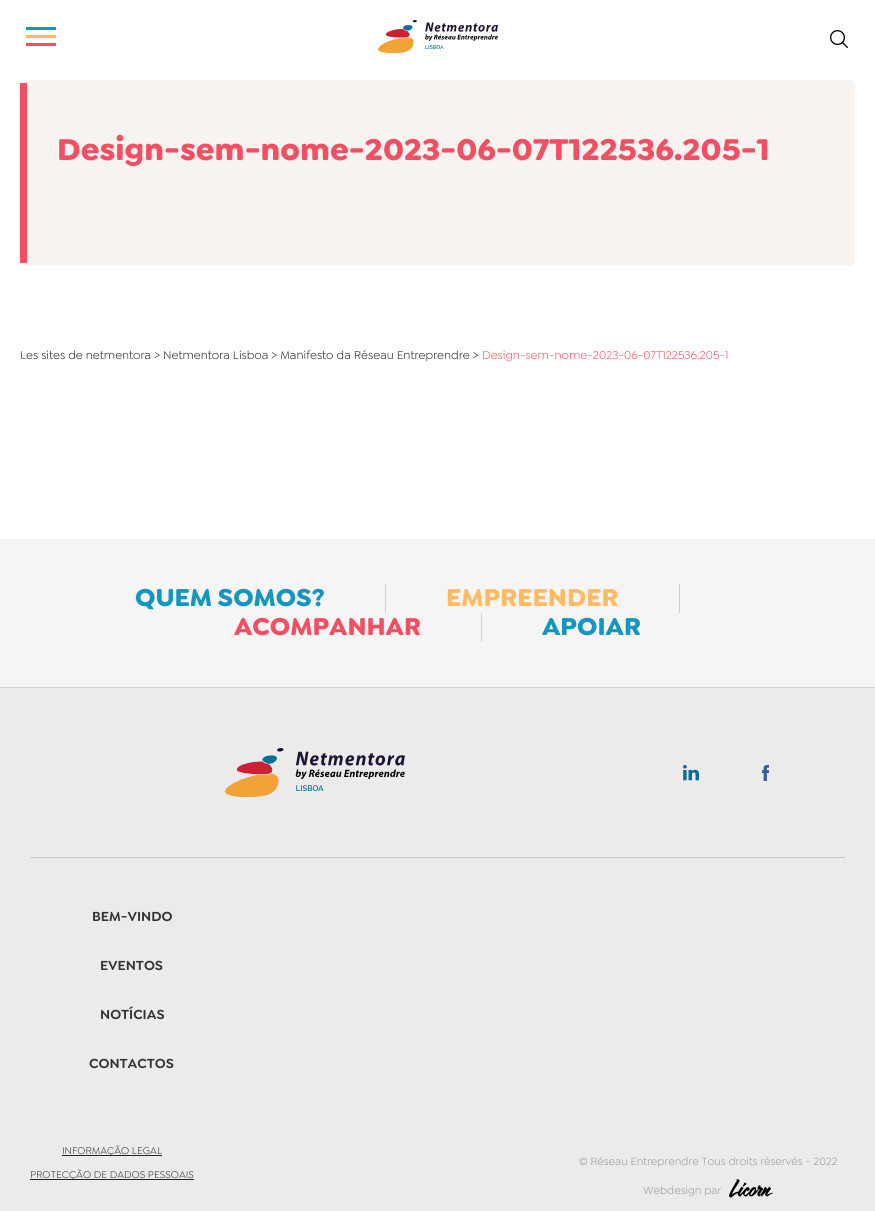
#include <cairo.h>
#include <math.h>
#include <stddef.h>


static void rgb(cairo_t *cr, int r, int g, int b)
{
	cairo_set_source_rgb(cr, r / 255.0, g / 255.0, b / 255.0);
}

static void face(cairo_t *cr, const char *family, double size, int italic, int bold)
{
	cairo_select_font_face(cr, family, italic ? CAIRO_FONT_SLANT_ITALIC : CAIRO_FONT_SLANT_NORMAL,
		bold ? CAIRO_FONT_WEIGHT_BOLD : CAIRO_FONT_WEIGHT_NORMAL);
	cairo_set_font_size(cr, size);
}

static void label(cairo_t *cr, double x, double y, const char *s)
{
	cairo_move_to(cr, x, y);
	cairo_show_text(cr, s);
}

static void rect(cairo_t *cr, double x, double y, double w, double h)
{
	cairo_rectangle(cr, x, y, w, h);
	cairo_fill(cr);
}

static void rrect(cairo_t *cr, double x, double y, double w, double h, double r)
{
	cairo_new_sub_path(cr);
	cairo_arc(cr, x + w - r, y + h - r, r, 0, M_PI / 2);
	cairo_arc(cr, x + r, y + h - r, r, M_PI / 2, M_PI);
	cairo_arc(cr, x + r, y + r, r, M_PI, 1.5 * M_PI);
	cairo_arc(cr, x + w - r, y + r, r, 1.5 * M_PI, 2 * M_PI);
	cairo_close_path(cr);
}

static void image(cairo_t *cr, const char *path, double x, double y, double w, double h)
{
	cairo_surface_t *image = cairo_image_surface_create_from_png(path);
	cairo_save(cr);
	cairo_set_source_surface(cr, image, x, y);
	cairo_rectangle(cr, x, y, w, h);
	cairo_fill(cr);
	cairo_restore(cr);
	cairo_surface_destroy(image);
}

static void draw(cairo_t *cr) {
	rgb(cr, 255, 255, 255);
	cairo_paint(cr);
	rgb(cr, 21, 149, 191);
	rect(cr, 26, 27, 30, 3);
	rgb(cr, 255, 187, 97);
	rect(cr, 26, 35, 30, 3);
	rgb(cr, 243, 79, 99);
	rect(cr, 26, 43, 30, 3);
	image(cr, "image0.png", 378, 20, 120, 33);
	image(cr, "image1.png", 830, 30, 18, 18);
	rgb(cr, 247, 243, 241);
	rrect(cr, 20, 80, 835, 186, 6);
	cairo_fill(cr);
	rgb(cr, 243, 79, 99);
	rect(cr, 20, 83, 7, 180);
	face(cr, "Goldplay", 32, 0, 1);
	label(cr, 57, 160, "Design-sem-nome-2023-06-07T122536.205-1");
	face(cr, "Goldplay", 12, 0, 0);
	rgb(cr, 33, 37, 41);
	label(cr, 20, 359, "Les sites de netmentora > Netmentora Lisboa > Manifesto da Réseau Entreprendre >");
	rgb(cr, 243, 79, 99);
	label(cr, 482, 359, "Design-sem-nome-2023-06-07T122536.205-1");
	rgb(cr, 245, 245, 245);
	rect(cr, 0, 539, 875, 148);
	rgb(cr, 208, 208, 208);
	rect(cr, 0, 687, 875, 1);
	rect(cr, 385, 584, 1, 29);
	face(cr, "Goldplay", 26, 0, 1);
	rgb(cr, 21, 149, 191);
	label(cr, 135, 606, "QUEM SOMOS?");
	rgb(cr, 208, 208, 208);
	rect(cr, 679, 584, 1, 29);
	rgb(cr, 255, 187, 97);
	label(cr, 446, 606, "EMPREENDER");
	rgb(cr, 208, 208, 208);
	rect(cr, 481, 613, 1, 29);
	rgb(cr, 243, 79, 99);
	label(cr, 234, 635, "ACOMPANHAR");
	rgb(cr, 21, 149, 191);
	label(cr, 542, 635, "APOIAR");
	rgb(cr, 235, 235, 235);
	rect(cr, 0, 688, 875, 523);
	rgb(cr, 200, 200, 200);
	rect(cr, 30, 857, 815, 1);
	image(cr, "image2.png", 225, 748, 180, 49);
	image(cr, "image3.png", 683, 765, 16, 16);
	image(cr, "image4.png", 762, 765, 7, 16);
	face(cr, "Goldplay SemiBold", 14, 0, 0);
	rgb(cr, 51, 51, 51);
	label(cr, 92, 921, "BEM-VINDO");
	label(cr, 100, 970, "EVENTOS");
	label(cr, 100, 1019, "NOTÍCIAS");
	label(cr, 89, 1068, "CONTACTOS");
	rgb(cr, 33, 37, 41);
	rect(cr, 62, 1155, 100, 1);
	face(cr, "Goldplay", 10.4, 0, 0);
	rgb(cr, 51, 51, 51);
	label(cr, 62, 1154, "INFORMAÇÃO LEGAL");
	rgb(cr, 33, 37, 41);
	rect(cr, 30, 1179, 164, 1);
	rgb(cr, 51, 51, 51);
	label(cr, 30, 1178, "PROTECÇÃO DE DADOS PESSOAIS");
	face(cr, "Goldplay", 11.2, 0, 0);
	rgb(cr, 153, 153, 153);
	label(cr, 579, 1165, "© Réseau Entreprendre Tous droits réservés - 2022");
	label(cr, 643, 1194, "Webdesign par");
	image(cr, "image5.png", 728, 1179, 45, 19);
}

int main(void) {
	cairo_surface_t *surface = cairo_image_surface_create(CAIRO_FORMAT_RGB24, 875, 1211);
	cairo_t *cr = cairo_create(surface);
	cairo_font_options_t *options = cairo_font_options_create();
	cairo_font_options_set_hint_metrics(options, CAIRO_HINT_METRICS_OFF);
	cairo_font_options_set_hint_style(options, CAIRO_HINT_STYLE_NONE);
	cairo_set_font_options(cr, options);
	cairo_set_miter_limit(cr, 4);
	draw(cr);
	cairo_surface_write_to_png(surface, "render.png");
	cairo_font_options_destroy(options);
	cairo_destroy(cr);
	cairo_surface_destroy(surface);
	return 0;
}
